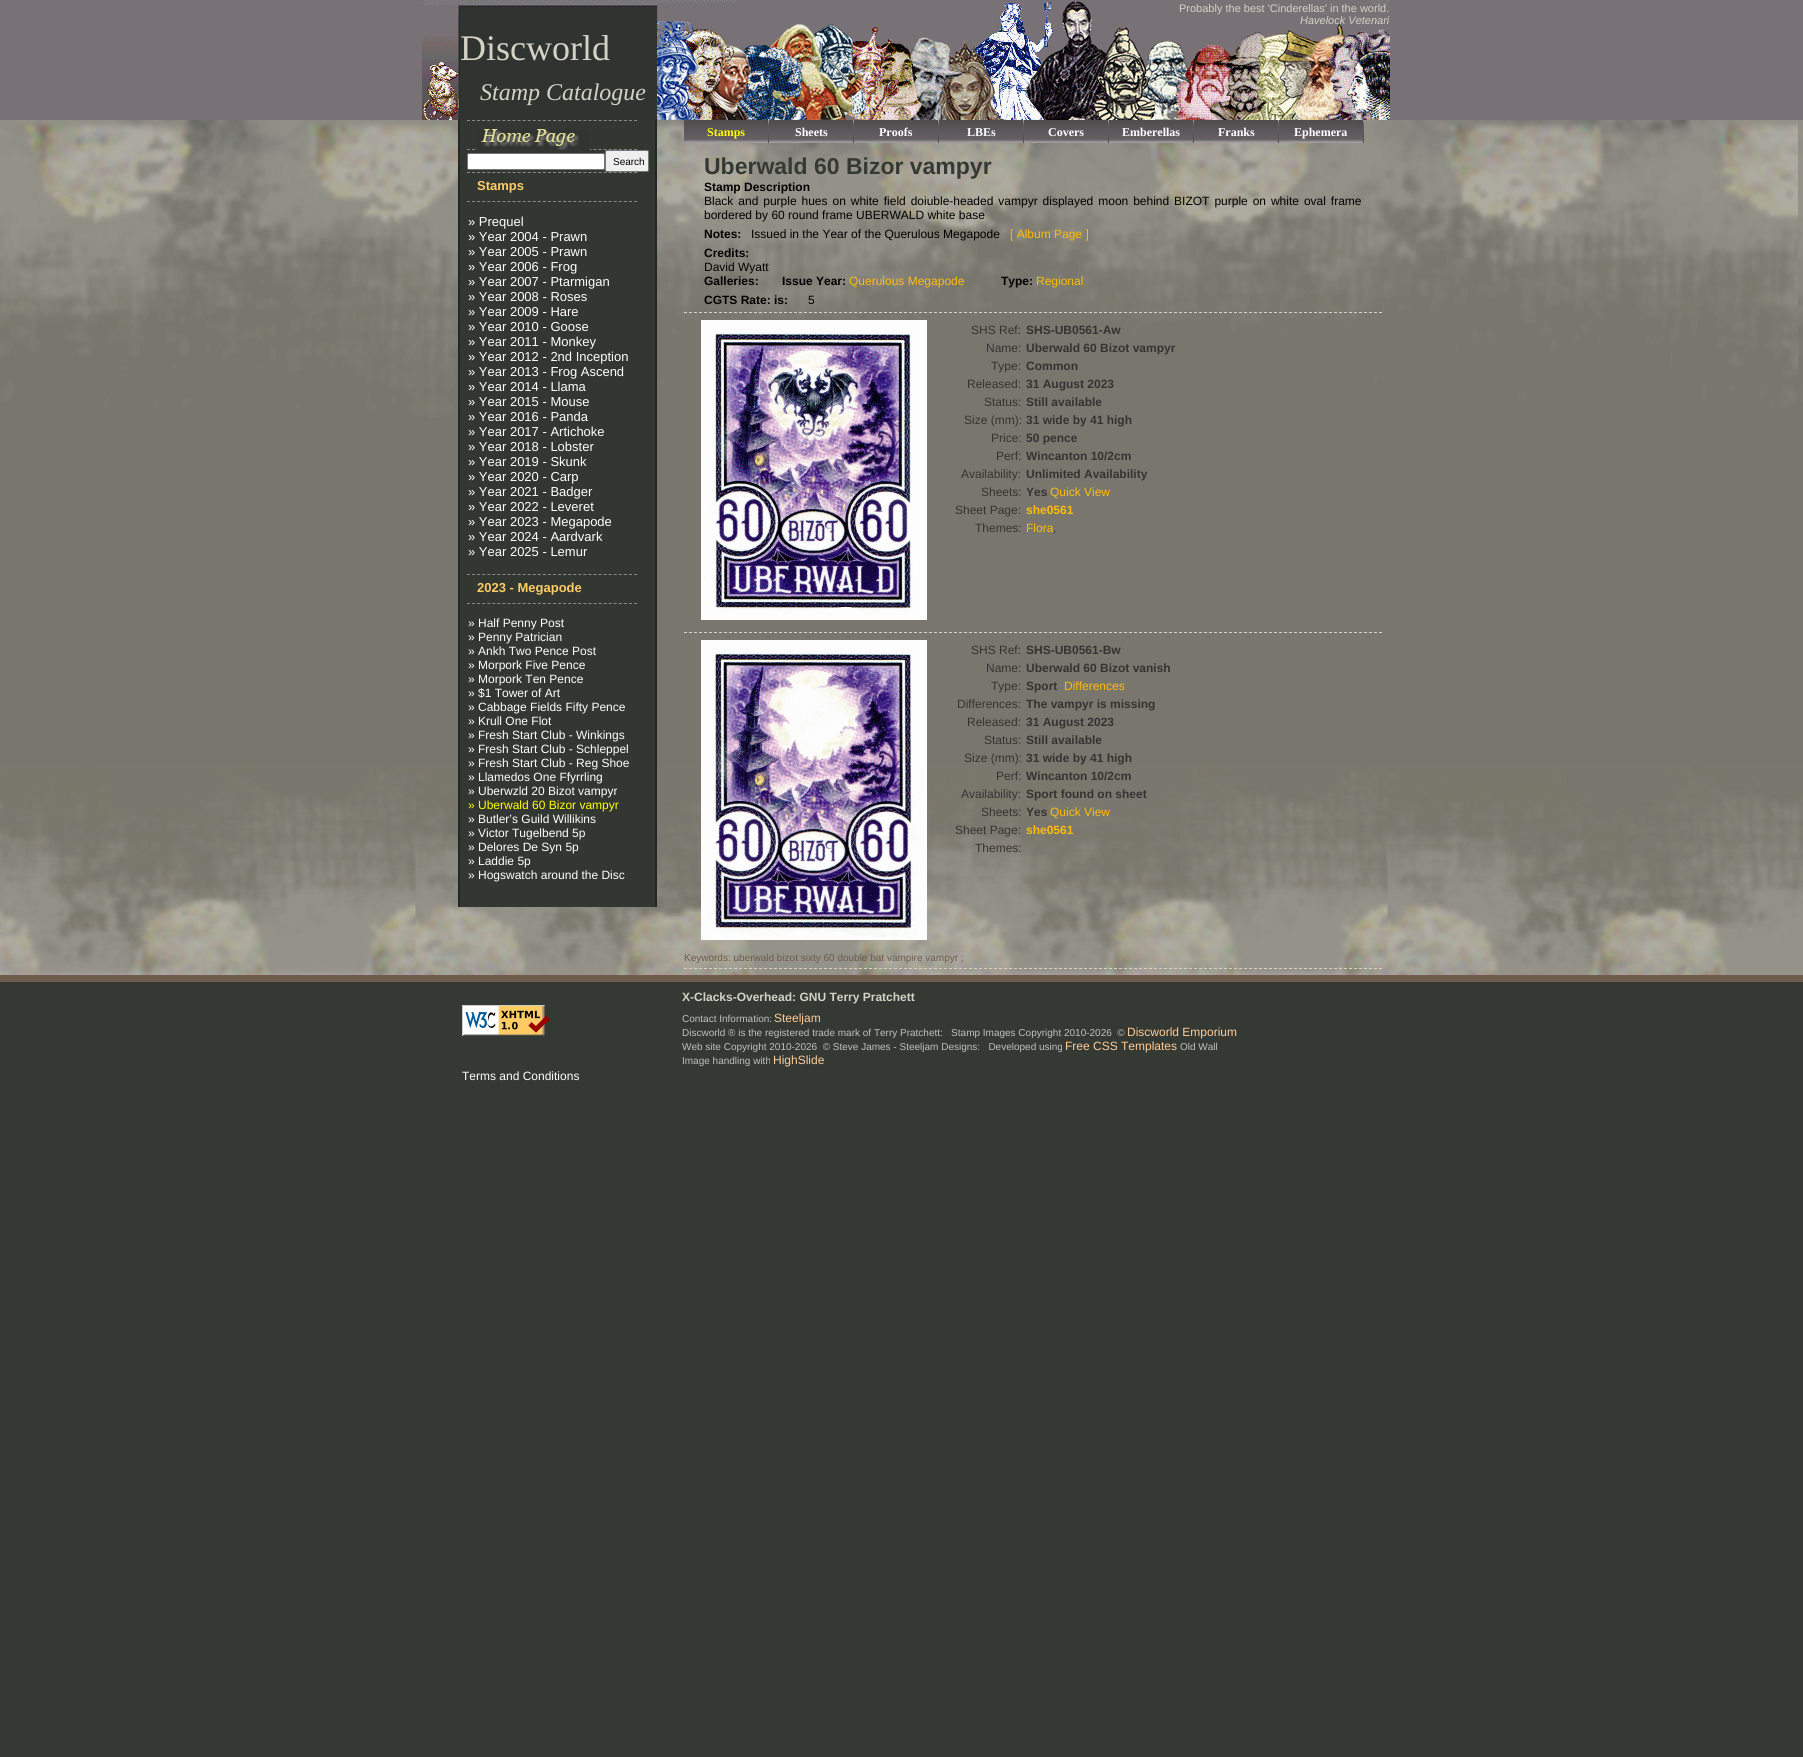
#include <cairo.h>
#include <math.h>
#include <stddef.h>


static void rgb(cairo_t *cr, int r, int g, int b)
{
	cairo_set_source_rgb(cr, r / 255.0, g / 255.0, b / 255.0);
}

static void face(cairo_t *cr, const char *family, double size, int italic, int bold)
{
	cairo_select_font_face(cr, family, italic ? CAIRO_FONT_SLANT_ITALIC : CAIRO_FONT_SLANT_NORMAL,
		bold ? CAIRO_FONT_WEIGHT_BOLD : CAIRO_FONT_WEIGHT_NORMAL);
	cairo_set_font_size(cr, size);
}

static void label(cairo_t *cr, double x, double y, const char *s)
{
	cairo_move_to(cr, x, y);
	cairo_show_text(cr, s);
}

static void tracked(cairo_t *cr, double x, double y, const char *s, double letter, double word)
{
	cairo_move_to(cr, x, y);
	while (*s) {
		char ch[5] = {0};
		int n = 0;
		do ch[n++] = *s++; while ((*s & 0xC0) == 0x80);
		cairo_show_text(cr, ch);
		cairo_rel_move_to(cr, letter + word * (*ch == ' '), 0);
	}
}

static void rect(cairo_t *cr, double x, double y, double w, double h)
{
	cairo_rectangle(cr, x, y, w, h);
	cairo_fill(cr);
}

static void rrect(cairo_t *cr, double x, double y, double w, double h, double r)
{
	cairo_new_sub_path(cr);
	cairo_arc(cr, x + w - r, y + h - r, r, 0, M_PI / 2);
	cairo_arc(cr, x + r, y + h - r, r, M_PI / 2, M_PI);
	cairo_arc(cr, x + r, y + r, r, M_PI, 1.5 * M_PI);
	cairo_arc(cr, x + w - r, y + r, r, 1.5 * M_PI, 2 * M_PI);
	cairo_close_path(cr);
}

static void image(cairo_t *cr, const char *path, double x, double y, double w, double h)
{
	cairo_surface_t *image = cairo_image_surface_create_from_png(path);
	cairo_save(cr);
	cairo_set_source_surface(cr, image, x, y);
	cairo_rectangle(cr, x, y, w, h);
	cairo_fill(cr);
	cairo_restore(cr);
	cairo_surface_destroy(image);
}

static void draw(cairo_t *cr) {
	rgb(cr, 52, 57, 51);
	cairo_paint(cr);
	rgb(cr, 120, 114, 119);
	rect(cr, 0, 0, 1803, 120);
	image(cr, "image0.png", 422, 0, 968, 120);
	face(cr, "Liberation Sans", 11, 0, 0);
	rgb(cr, 212, 210, 197);
	label(cr, 1179, 12, "Probably the best 'Cinderellas' in the world.");
	face(cr, "Liberation Sans", 11, 1, 0);
	label(cr, 1300, 24, "Havelock Vetenari");
	face(cr, "Liberation Serif", 36, 0, 0);
	label(cr, 460, 60, "Discworld");
	face(cr, "Liberation Serif", 24, 1, 0);
	label(cr, 480, 100, "Stamp Catalogue");
	rgb(cr, 121, 119, 109);
	rect(cr, 0, 418, 1803, 348);
	image(cr, "image1.png", 0, 120, 1803, 298);
	image(cr, "image2.png", 0, 766, 1803, 209);
	rgb(cr, 50, 55, 50);
	rect(cr, 460, 120, 195, 787);
	rgb(cr, 32, 40, 42);
	rect(cr, 655, 120, 2, 787);
	rect(cr, 458, 120, 2, 787);
	cairo_new_path(cr);
	cairo_move_to(cr, 467, 120.5);
	cairo_line_to(cr, 637, 120.5);
	rgb(cr, 137, 140, 130);
	cairo_set_line_width(cr, 1);
	cairo_set_dash(cr, (double[]){3, 2.06}, 2, 0);
	cairo_stroke(cr);
	cairo_new_path(cr);
	cairo_move_to(cr, 467, 149.5);
	cairo_line_to(cr, 637, 149.5);
	cairo_stroke(cr);
	image(cr, "image3.png", 477, 129, 113, 21);
	rgb(cr, 255, 255, 255);
	rrect(cr, 467.5, 153.5, 137, 16, 1.5);
	cairo_fill_preserve(cr);
	rgb(cr, 118, 118, 118);
	cairo_set_dash(cr, NULL, 0, 0);
	cairo_stroke(cr);
	rgb(cr, 239, 239, 239);
	rrect(cr, 605.5, 150.5, 43, 21, 1.5);
	cairo_fill_preserve(cr);
	rgb(cr, 118, 118, 118);
	cairo_stroke(cr);
	face(cr, "Liberation Sans", 10, 0, 0);
	rgb(cr, 0, 0, 0);
	label(cr, 613, 165, "Search");
	cairo_new_path(cr);
	cairo_move_to(cr, 467, 172.5);
	cairo_line_to(cr, 637, 172.5);
	rgb(cr, 137, 140, 130);
	cairo_set_dash(cr, (double[]){3, 2.06}, 2, 0);
	cairo_stroke(cr);
	cairo_new_path(cr);
	cairo_move_to(cr, 467, 201.5);
	cairo_line_to(cr, 637, 201.5);
	cairo_stroke(cr);
	face(cr, "Liberation Sans", 13, 0, 1);
	rgb(cr, 255, 204, 102);
	label(cr, 477, 190, "Stamps");
	face(cr, "Liberation Sans", 13, 0, 0);
	rgb(cr, 255, 255, 255);
	label(cr, 468, 226, "» Prequel");
	label(cr, 468, 241, "» Year 2004 - Prawn");
	label(cr, 468, 256, "» Year 2005 - Prawn");
	label(cr, 468, 271, "» Year 2006 - Frog");
	label(cr, 468, 286, "» Year 2007 - Ptarmigan");
	label(cr, 468, 301, "» Year 2008 - Roses");
	label(cr, 468, 316, "» Year 2009 - Hare");
	label(cr, 468, 331, "» Year 2010 - Goose");
	label(cr, 468, 346, "» Year 2011 - Monkey");
	label(cr, 468, 361, "» Year 2012 - 2nd Inception");
	label(cr, 468, 376, "» Year 2013 - Frog Ascend");
	label(cr, 468, 391, "» Year 2014 - Llama");
	label(cr, 468, 406, "» Year 2015 - Mouse");
	label(cr, 468, 421, "» Year 2016 - Panda");
	label(cr, 468, 436, "» Year 2017 - Artichoke");
	label(cr, 468, 451, "» Year 2018 - Lobster");
	label(cr, 468, 466, "» Year 2019 - Skunk");
	label(cr, 468, 481, "» Year 2020 - Carp");
	label(cr, 468, 496, "» Year 2021 - Badger");
	label(cr, 468, 511, "» Year 2022 - Leveret");
	label(cr, 468, 526, "» Year 2023 - Megapode");
	label(cr, 468, 541, "» Year 2024 - Aardvark");
	label(cr, 468, 556, "» Year 2025 - Lemur");
	cairo_new_path(cr);
	cairo_move_to(cr, 467, 574.5);
	cairo_line_to(cr, 637, 574.5);
	rgb(cr, 137, 140, 130);
	cairo_stroke(cr);
	cairo_new_path(cr);
	cairo_move_to(cr, 467, 603.5);
	cairo_line_to(cr, 637, 603.5);
	cairo_stroke(cr);
	face(cr, "Liberation Sans", 13, 0, 1);
	rgb(cr, 255, 204, 102);
	label(cr, 477, 592, "2023 - Megapode");
	face(cr, "Liberation Sans", 12, 0, 0);
	rgb(cr, 255, 255, 255);
	label(cr, 468, 627, "» Half Penny Post");
	label(cr, 468, 641, "» Penny Patrician");
	label(cr, 468, 655, "» Ankh Two Pence Post");
	label(cr, 468, 669, "» Morpork Five Pence");
	label(cr, 468, 683, "» Morpork Ten Pence");
	label(cr, 468, 697, "» $1 Tower of Art");
	label(cr, 468, 711, "» Cabbage Fields Fifty Pence");
	label(cr, 468, 725, "» Krull One Flot");
	label(cr, 468, 739, "» Fresh Start Club - Winkings");
	label(cr, 468, 753, "» Fresh Start Club - Schleppel");
	label(cr, 468, 767, "» Fresh Start Club - Reg Shoe");
	label(cr, 468, 781, "» Llamedos One Ffyrrling");
	label(cr, 468, 795, "» Uberwzld 20 Bizot vampyr");
	rgb(cr, 255, 255, 0);
	label(cr, 468, 809, "» Uberwald 60 Bizor vampyr");
	rgb(cr, 255, 255, 255);
	label(cr, 468, 823, "» Butler’s Guild Willikins");
	label(cr, 468, 837, "» Victor Tugelbend 5p");
	label(cr, 468, 851, "» Delores De Syn 5p");
	label(cr, 468, 865, "» Laddie 5p");
	label(cr, 468, 879, "» Hogswatch around the Disc");
	image(cr, "image4.png", 684, 120, 85, 23);
	face(cr, "Liberation Serif", 12, 0, 1);
	rgb(cr, 255, 255, 0);
	label(cr, 707, 136, "Stamps");
	image(cr, "image4.png", 769, 120, 85, 23);
	rgb(cr, 255, 255, 255);
	label(cr, 795, 136, "Sheets");
	image(cr, "image4.png", 854, 120, 85, 23);
	label(cr, 879, 136, "Proofs");
	image(cr, "image4.png", 939, 120, 85, 23);
	label(cr, 967, 136, "LBEs");
	image(cr, "image4.png", 1024, 120, 85, 23);
	label(cr, 1048, 136, "Covers");
	image(cr, "image4.png", 1109, 120, 85, 23);
	label(cr, 1122, 136, "Emberellas");
	image(cr, "image4.png", 1194, 120, 85, 23);
	label(cr, 1218, 136, "Franks");
	image(cr, "image4.png", 1279, 120, 85, 23);
	label(cr, 1294, 136, "Ephemera");
	face(cr, "Liberation Sans", 23, 0, 1);
	rgb(cr, 52, 57, 51);
	label(cr, 704, 174, "Uberwald 60 Bizor vampyr");
	face(cr, "Liberation Sans", 12, 0, 1);
	rgb(cr, 0, 0, 0);
	label(cr, 704, 191, "Stamp Description");
	face(cr, "Liberation Sans", 12, 0, 0);
	tracked(cr, 704, 205, "Black and purple hues on white field doiuble-headed vampyr displayed moon behind BIZOT purple on white oval frame", 0, 1.6);
	label(cr, 704, 219, "bordered by 60 round frame UBERWALD white base");
	face(cr, "Liberation Sans", 12, 0, 1);
	label(cr, 704, 238, "Notes:");
	face(cr, "Liberation Sans", 12, 0, 0);
	label(cr, 751, 238, "Issued in the Year of the Querulous Megapode");
	rgb(cr, 253, 188, 13);
	label(cr, 1010, 238, "[ Album Page ]");
	face(cr, "Liberation Sans", 12, 0, 1);
	rgb(cr, 0, 0, 0);
	label(cr, 704, 257, "Credits:");
	face(cr, "Liberation Sans", 12, 0, 0);
	label(cr, 704, 271, "David Wyatt");
	face(cr, "Liberation Sans", 12, 0, 1);
	label(cr, 704, 285, "Galleries:");
	label(cr, 782, 285, "Issue Year:");
	face(cr, "Liberation Sans", 12, 0, 0);
	rgb(cr, 253, 188, 13);
	label(cr, 849, 285, "Querulous Megapode");
	face(cr, "Liberation Sans", 12, 0, 1);
	rgb(cr, 0, 0, 0);
	label(cr, 1001, 285, "Type:");
	face(cr, "Liberation Sans", 12, 0, 0);
	rgb(cr, 253, 188, 13);
	label(cr, 1036, 285, "Regional");
	face(cr, "Liberation Sans", 12, 0, 1);
	rgb(cr, 0, 0, 0);
	label(cr, 704, 304, "CGTS Rate: is:");
	face(cr, "Liberation Sans", 12, 0, 0);
	label(cr, 808, 304, "5");
	cairo_new_path(cr);
	cairo_move_to(cr, 684, 312.5);
	cairo_line_to(cr, 1382, 312.5);
	rgb(cr, 212, 210, 197);
	cairo_set_dash(cr, (double[]){3, 2}, 2, 0);
	cairo_stroke(cr);
	image(cr, "image5.png", 701, 320, 226, 300);
	rgb(cr, 51, 51, 51);
	label(cr, 971, 334, "SHS Ref:");
	face(cr, "Liberation Sans", 12, 0, 1);
	label(cr, 1026, 334, "SHS-UB0561-Aw");
	face(cr, "Liberation Sans", 12, 0, 0);
	label(cr, 986, 352, "Name:");
	face(cr, "Liberation Sans", 12, 0, 1);
	label(cr, 1026, 352, "Uberwald 60 Bizot vampyr");
	face(cr, "Liberation Sans", 12, 0, 0);
	label(cr, 991, 370, "Type:");
	face(cr, "Liberation Sans", 12, 0, 1);
	label(cr, 1026, 370, "Common");
	face(cr, "Liberation Sans", 12, 0, 0);
	label(cr, 967, 388, "Released:");
	face(cr, "Liberation Sans", 12, 0, 1);
	label(cr, 1026, 388, "31 August 2023");
	face(cr, "Liberation Sans", 12, 0, 0);
	label(cr, 984, 406, "Status:");
	face(cr, "Liberation Sans", 12, 0, 1);
	label(cr, 1026, 406, "Still available");
	face(cr, "Liberation Sans", 12, 0, 0);
	label(cr, 964, 424, "Size (mm):");
	face(cr, "Liberation Sans", 12, 0, 1);
	label(cr, 1026, 424, "31 wide by 41 high");
	face(cr, "Liberation Sans", 12, 0, 0);
	label(cr, 991, 442, "Price:");
	face(cr, "Liberation Sans", 12, 0, 1);
	label(cr, 1026, 442, "50 pence");
	face(cr, "Liberation Sans", 12, 0, 0);
	label(cr, 996, 460, "Perf:");
	face(cr, "Liberation Sans", 12, 0, 1);
	label(cr, 1026, 460, "Wincanton 10/2cm");
	face(cr, "Liberation Sans", 12, 0, 0);
	label(cr, 961, 478, "Availability:");
	face(cr, "Liberation Sans", 12, 0, 1);
	label(cr, 1026, 478, "Unlimited Availability");
	face(cr, "Liberation Sans", 12, 0, 0);
	label(cr, 981, 496, "Sheets:");
	face(cr, "Liberation Sans", 12, 0, 1);
	label(cr, 1026, 496, "Yes");
	face(cr, "Liberation Sans", 12, 0, 0);
	rgb(cr, 253, 188, 13);
	label(cr, 1050, 496, "Quick View");
	rgb(cr, 51, 51, 51);
	label(cr, 955, 514, "Sheet Page:");
	face(cr, "Liberation Sans", 12, 0, 1);
	rgb(cr, 253, 188, 13);
	label(cr, 1026, 514, "she0561");
	face(cr, "Liberation Sans", 12, 0, 0);
	rgb(cr, 51, 51, 51);
	label(cr, 975, 532, "Themes:");
	rgb(cr, 253, 188, 13);
	label(cr, 1026, 532, "Flora");
	rgb(cr, 51, 51, 51);
	label(cr, 1053, 532, ",");
	cairo_new_path(cr);
	cairo_move_to(cr, 684, 632.5);
	cairo_line_to(cr, 1382, 632.5);
	rgb(cr, 212, 210, 197);
	cairo_stroke(cr);
	image(cr, "image6.png", 701, 640, 226, 300);
	rgb(cr, 51, 51, 51);
	label(cr, 971, 654, "SHS Ref:");
	face(cr, "Liberation Sans", 12, 0, 1);
	label(cr, 1026, 654, "SHS-UB0561-Bw");
	face(cr, "Liberation Sans", 12, 0, 0);
	label(cr, 986, 672, "Name:");
	face(cr, "Liberation Sans", 12, 0, 1);
	label(cr, 1026, 672, "Uberwald 60 Bizot vanish");
	face(cr, "Liberation Sans", 12, 0, 0);
	label(cr, 991, 690, "Type:");
	face(cr, "Liberation Sans", 12, 0, 1);
	label(cr, 1026, 690, "Sport");
	face(cr, "Liberation Sans", 12, 0, 0);
	rgb(cr, 253, 188, 13);
	label(cr, 1064, 690, "Differences");
	rgb(cr, 51, 51, 51);
	label(cr, 957, 708, "Differences:");
	face(cr, "Liberation Sans", 12, 0, 1);
	label(cr, 1026, 708, "The vampyr is missing");
	face(cr, "Liberation Sans", 12, 0, 0);
	label(cr, 967, 726, "Released:");
	face(cr, "Liberation Sans", 12, 0, 1);
	label(cr, 1026, 726, "31 August 2023");
	face(cr, "Liberation Sans", 12, 0, 0);
	label(cr, 984, 744, "Status:");
	face(cr, "Liberation Sans", 12, 0, 1);
	label(cr, 1026, 744, "Still available");
	face(cr, "Liberation Sans", 12, 0, 0);
	label(cr, 964, 762, "Size (mm):");
	face(cr, "Liberation Sans", 12, 0, 1);
	label(cr, 1026, 762, "31 wide by 41 high");
	face(cr, "Liberation Sans", 12, 0, 0);
	label(cr, 996, 780, "Perf:");
	face(cr, "Liberation Sans", 12, 0, 1);
	label(cr, 1026, 780, "Wincanton 10/2cm");
	face(cr, "Liberation Sans", 12, 0, 0);
	label(cr, 961, 798, "Availability:");
	face(cr, "Liberation Sans", 12, 0, 1);
	label(cr, 1026, 798, "Sport found on sheet");
	face(cr, "Liberation Sans", 12, 0, 0);
	label(cr, 981, 816, "Sheets:");
	face(cr, "Liberation Sans", 12, 0, 1);
	label(cr, 1026, 816, "Yes");
	face(cr, "Liberation Sans", 12, 0, 0);
	rgb(cr, 253, 188, 13);
	label(cr, 1050, 816, "Quick View");
	rgb(cr, 51, 51, 51);
	label(cr, 955, 834, "Sheet Page:");
	face(cr, "Liberation Sans", 12, 0, 1);
	rgb(cr, 253, 188, 13);
	label(cr, 1026, 834, "she0561");
	face(cr, "Liberation Sans", 12, 0, 0);
	rgb(cr, 51, 51, 51);
	label(cr, 975, 852, "Themes:");
	face(cr, "Liberation Sans", 10, 0, 0);
	rgb(cr, 110, 90, 76);
	label(cr, 684, 961, "Keywords: uberwald bizot sixty 60 double bat vampire vampyr ;");
	cairo_new_path(cr);
	cairo_move_to(cr, 684, 968.5);
	cairo_line_to(cr, 1382, 968.5);
	rgb(cr, 212, 210, 197);
	cairo_stroke(cr);
	image(cr, "image7.png", 0, 975, 1803, 8);
	face(cr, "Liberation Sans", 12, 0, 1);
	label(cr, 682, 1001, "X-Clacks-Overhead: GNU Terry Pratchett");
	face(cr, "Liberation Sans", 10, 0, 0);
	rgb(cr, 192, 192, 192);
	label(cr, 682, 1022, "Contact Information:");
	face(cr, "Liberation Sans", 12, 0, 0);
	rgb(cr, 255, 204, 153);
	label(cr, 774, 1022, "Steeljam");
	face(cr, "Liberation Sans", 10, 0, 0);
	rgb(cr, 192, 192, 192);
	label(cr, 682, 1036, "Discworld ® is the registered trade mark of Terry Pratchett:   Stamp Images Copyright 2010-2026  ©");
	face(cr, "Liberation Sans", 12, 0, 0);
	rgb(cr, 255, 204, 153);
	label(cr, 1127, 1036, "Discworld Emporium");
	face(cr, "Liberation Sans", 10, 0, 0);
	rgb(cr, 192, 192, 192);
	label(cr, 682, 1050, "Web site Copyright 2010-2026  © Steve James - Steeljam Designs:   Developed using");
	face(cr, "Liberation Sans", 12, 0, 0);
	rgb(cr, 255, 204, 153);
	label(cr, 1065, 1050, "Free CSS Templates");
	face(cr, "Liberation Sans", 10, 0, 0);
	rgb(cr, 192, 192, 192);
	label(cr, 1180, 1050, "Old Wall");
	label(cr, 682, 1064, "Image handling with");
	face(cr, "Liberation Sans", 12, 0, 0);
	rgb(cr, 255, 204, 153);
	label(cr, 773, 1064, "HighSlide");
	image(cr, "image8.png", 462, 1005, 88, 31);
	rgb(cr, 255, 255, 255);
	label(cr, 462, 1080, "Terms and Conditions");
}

int main(void) {
	cairo_surface_t *surface = cairo_image_surface_create(CAIRO_FORMAT_RGB24, 1803, 1757);
	cairo_t *cr = cairo_create(surface);
	cairo_font_options_t *options = cairo_font_options_create();
	cairo_font_options_set_hint_metrics(options, CAIRO_HINT_METRICS_OFF);
	cairo_font_options_set_hint_style(options, CAIRO_HINT_STYLE_NONE);
	cairo_set_font_options(cr, options);
	cairo_set_miter_limit(cr, 4);
	draw(cr);
	cairo_surface_write_to_png(surface, "render.png");
	cairo_font_options_destroy(options);
	cairo_destroy(cr);
	cairo_surface_destroy(surface);
	return 0;
}
